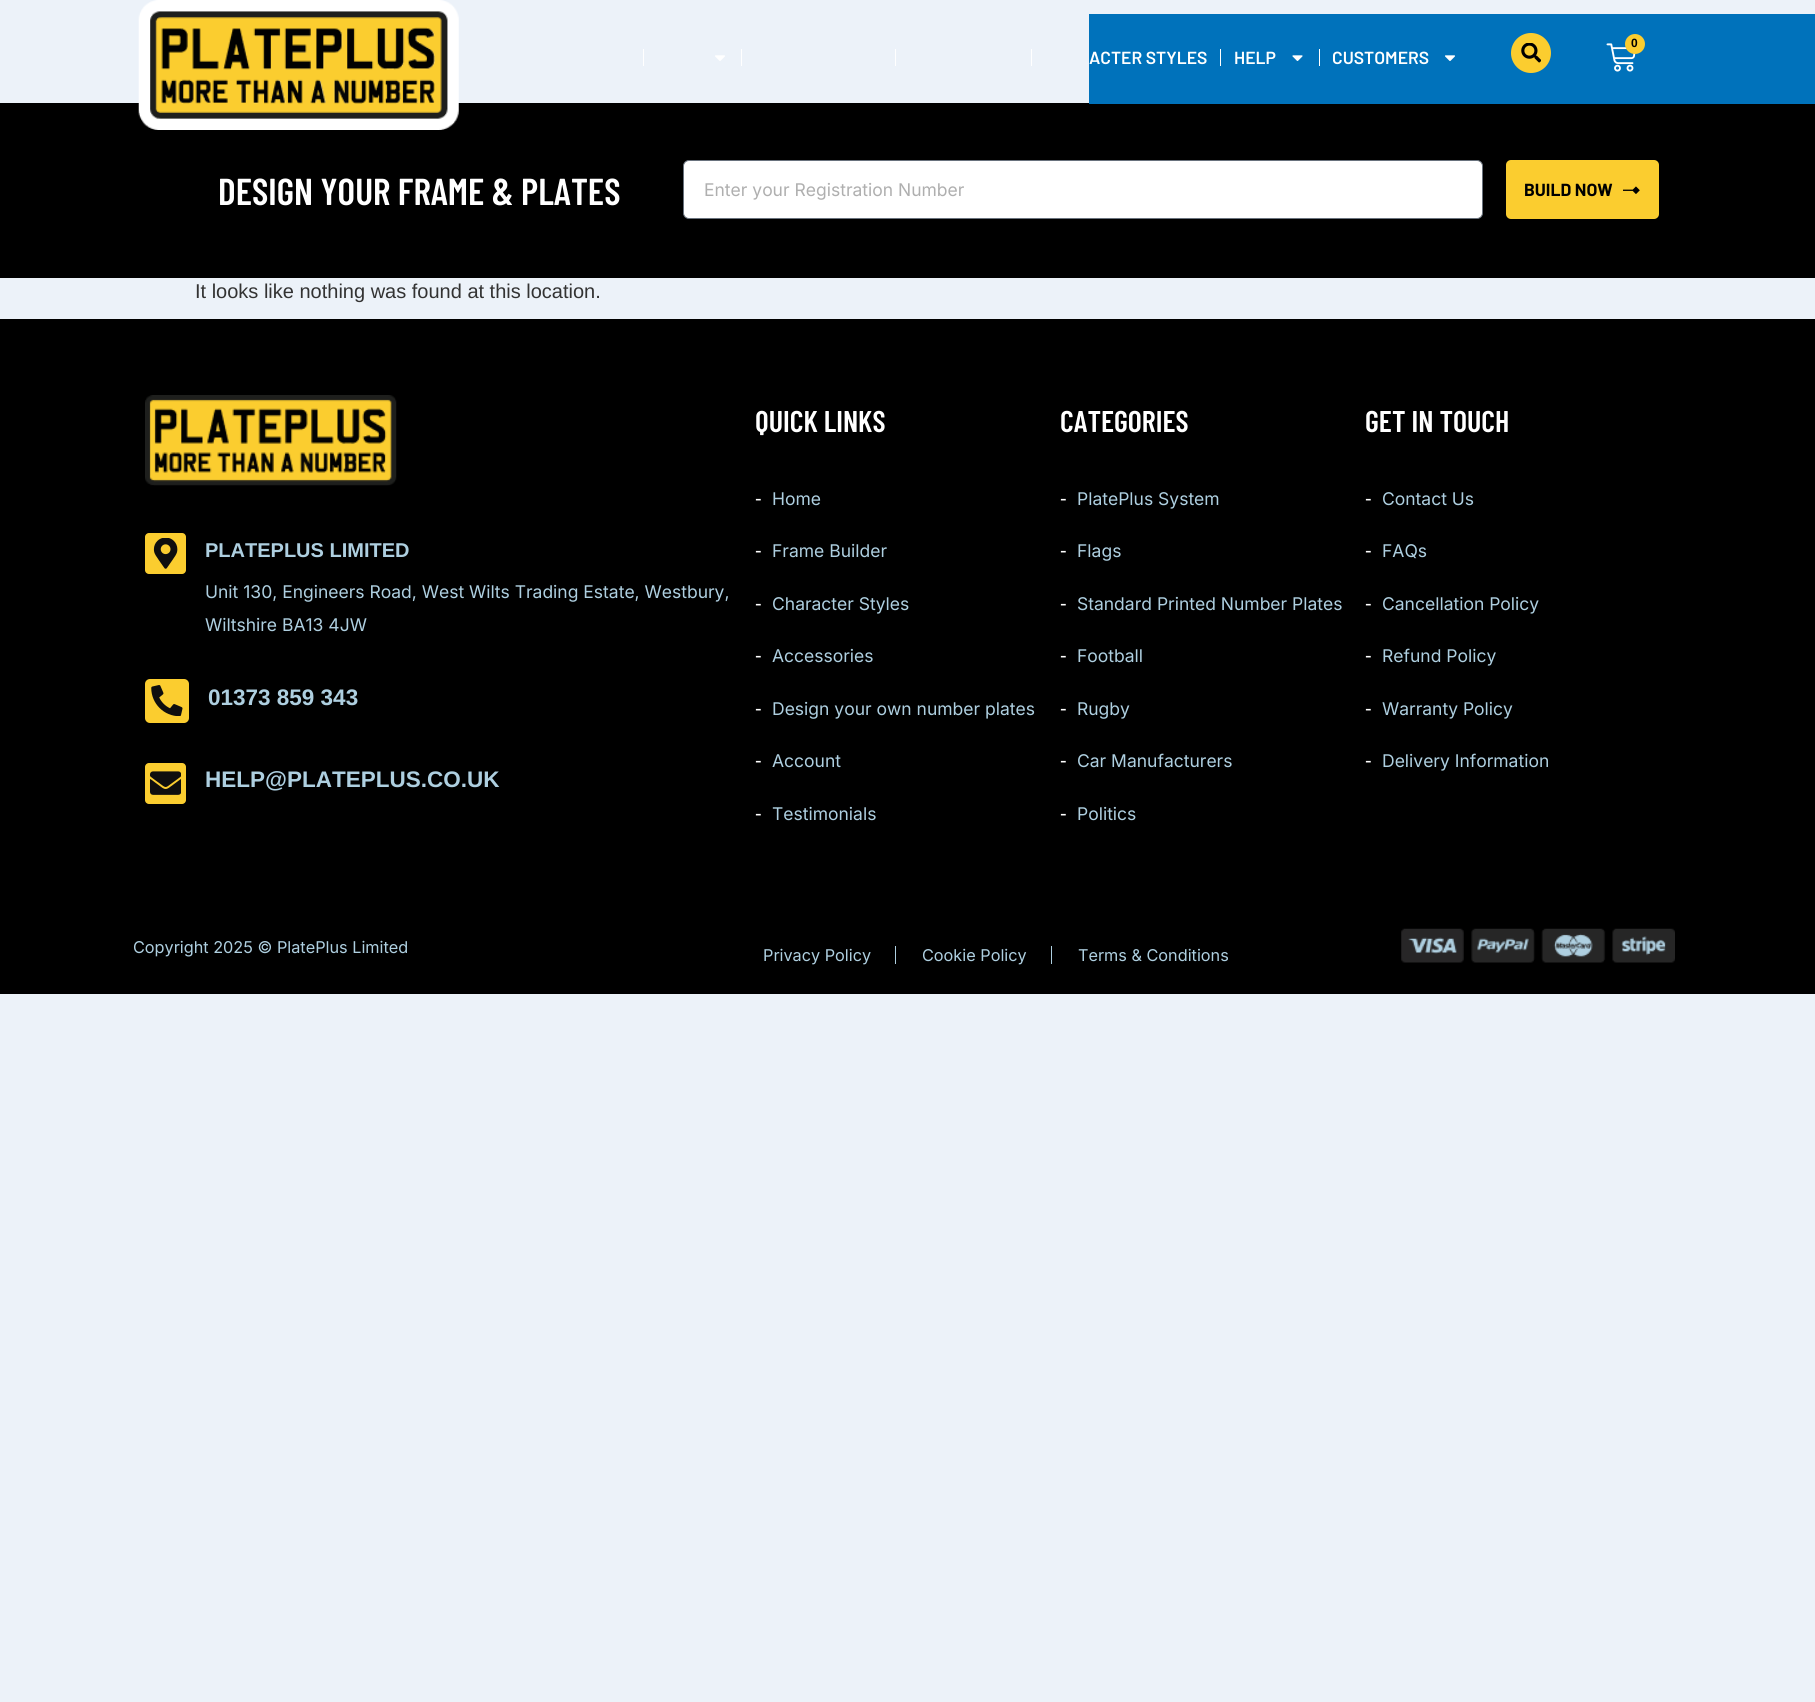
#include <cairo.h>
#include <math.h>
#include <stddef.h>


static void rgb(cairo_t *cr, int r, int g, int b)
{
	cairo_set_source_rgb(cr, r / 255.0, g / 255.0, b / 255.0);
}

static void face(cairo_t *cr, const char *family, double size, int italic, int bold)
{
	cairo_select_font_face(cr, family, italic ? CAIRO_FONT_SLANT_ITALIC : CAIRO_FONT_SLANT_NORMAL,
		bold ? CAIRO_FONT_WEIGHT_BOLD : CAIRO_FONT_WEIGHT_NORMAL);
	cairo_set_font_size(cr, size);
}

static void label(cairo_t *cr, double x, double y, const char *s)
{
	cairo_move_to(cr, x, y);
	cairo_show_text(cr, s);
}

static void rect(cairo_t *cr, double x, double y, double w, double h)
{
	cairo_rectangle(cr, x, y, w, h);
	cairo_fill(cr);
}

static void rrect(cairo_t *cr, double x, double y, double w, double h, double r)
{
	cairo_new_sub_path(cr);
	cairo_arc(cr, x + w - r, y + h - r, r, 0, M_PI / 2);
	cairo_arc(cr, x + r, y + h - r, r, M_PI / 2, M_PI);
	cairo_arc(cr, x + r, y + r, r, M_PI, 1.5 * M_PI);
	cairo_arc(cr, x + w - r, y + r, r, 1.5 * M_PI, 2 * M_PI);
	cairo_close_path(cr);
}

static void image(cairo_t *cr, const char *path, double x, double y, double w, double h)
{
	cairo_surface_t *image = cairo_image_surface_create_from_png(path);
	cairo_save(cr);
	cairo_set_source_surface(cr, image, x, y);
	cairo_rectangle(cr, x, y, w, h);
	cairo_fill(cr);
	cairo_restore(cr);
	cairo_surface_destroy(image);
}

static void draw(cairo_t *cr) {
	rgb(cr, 236, 242, 249);
	cairo_paint(cr);
	rgb(cr, 0, 0, 0);
	rect(cr, 0, 103, 1815, 175);
	rgb(cr, 0, 114, 187);
	rect(cr, 1089, 14, 726, 90);
	image(cr, "image0.png", 138, 0, 321, 130);
	rgb(cr, 251, 205, 47);
	cairo_arc(cr, 1531, 53, 20, 0, 2 * M_PI);
	cairo_fill(cr);
	image(cr, "image1.png", 1521, 43, 20, 20);
	image(cr, "image2.png", 1606, 43, 30, 29);
	cairo_arc(cr, 1635, 44, 10, 0, 2 * M_PI);
	cairo_fill(cr);
	face(cr, "Liberation Sans", 12, 0, 1);
	rgb(cr, 0, 0, 0);
	label(cr, 1631, 47, "0");
	rgb(cr, 255, 255, 255);
	rect(cr, 643, 49, 1, 17);
	image(cr, "image3.png", 715, 55, 10, 6);
	rect(cr, 741, 49, 1, 17);
	rect(cr, 895, 49, 1, 17);
	rect(cr, 1031, 49, 1, 17);
	face(cr, "Barlow SemiBold", 17.5, 0, 0);
	label(cr, 1089, 64, "ACTER STYLES");
	rect(cr, 1220, 49, 1, 17);
	label(cr, 1234, 64, "HELP");
	image(cr, "image4.png", 1292, 55, 11, 6);
	rect(cr, 1319, 49, 1, 17);
	label(cr, 1332, 64, "CUSTOMERS");
	image(cr, "image5.png", 1445, 55, 10, 6);
	face(cr, "Barlow Condensed SemiBold", 37.5, 0, 0);
	label(cr, 218, 205, "DESIGN YOUR FRAME & PLATES");
	rrect(cr, 683.5, 160.5, 799, 58, 5.5);
	cairo_fill_preserve(cr);
	rgb(cr, 105, 114, 125);
	cairo_set_line_width(cr, 1);
	cairo_stroke(cr);
	face(cr, "Inter", 17.5, 0, 0);
	rgb(cr, 175, 175, 175);
	label(cr, 704, 196, "Enter your Registration Number");
	rgb(cr, 251, 205, 47);
	rrect(cr, 1506, 160, 153, 59, 5);
	cairo_fill(cr);
	face(cr, "Barlow", 17.5, 0, 1);
	rgb(cr, 0, 0, 0);
	label(cr, 1524, 196, "BUILD NOW");
	image(cr, "image6.png", 1623, 186, 17, 8);
	face(cr, "Liberation Sans", 20, 0, 0);
	rgb(cr, 51, 51, 51);
	label(cr, 195, 298, "It looks like nothing was found at this location.");
	rgb(cr, 0, 0, 0);
	rect(cr, 0, 319, 1815, 675);
	image(cr, "image7.png", 145, 395, 252, 91);
	rgb(cr, 251, 205, 47);
	rrect(cr, 145, 533, 41, 41, 4);
	cairo_fill(cr);
	image(cr, "image8.png", 153, 538, 25, 31);
	face(cr, "Liberation Sans", 20, 0, 1);
	rgb(cr, 174, 207, 224);
	label(cr, 205, 557, "PLATEPLUS LIMITED");
	face(cr, "Inter", 17.5, 0, 0);
	label(cr, 205, 598, "Unit 130, Engineers Road, West Wilts Trading Estate, Westbury,");
	label(cr, 205, 631, "Wiltshire BA13 4JW");
	rgb(cr, 251, 205, 47);
	rrect(cr, 145, 679, 44, 44, 5);
	cairo_fill(cr);
	image(cr, "image9.png", 151, 685, 32, 31);
	face(cr, "Liberation Sans", 22.5, 0, 1);
	rgb(cr, 174, 207, 224);
	label(cr, 208, 705, "01373 859 343");
	rgb(cr, 251, 205, 47);
	rrect(cr, 145, 763, 41, 41, 4);
	cairo_fill(cr);
	image(cr, "image10.png", 150, 771, 31, 24);
	rgb(cr, 174, 207, 224);
	label(cr, 205, 787, "HELP@PLATEPLUS.CO.UK");
	face(cr, "Barlow Condensed SemiBold", 30, 0, 0);
	rgb(cr, 255, 255, 255);
	label(cr, 755, 432, "QUICK LINKS");
	face(cr, "Liberation Sans", 20, 0, 0);
	label(cr, 755, 505, "-");
	face(cr, "Inter", 17.5, 0, 0);
	rgb(cr, 174, 207, 224);
	label(cr, 772, 505, "Home");
	face(cr, "Liberation Sans", 20, 0, 0);
	rgb(cr, 255, 255, 255);
	label(cr, 755, 557, "-");
	face(cr, "Inter", 17.5, 0, 0);
	rgb(cr, 174, 207, 224);
	label(cr, 772, 557, "Frame Builder");
	face(cr, "Liberation Sans", 20, 0, 0);
	rgb(cr, 255, 255, 255);
	label(cr, 755, 610, "-");
	face(cr, "Inter", 17.5, 0, 0);
	rgb(cr, 174, 207, 224);
	label(cr, 772, 610, "Character Styles");
	face(cr, "Liberation Sans", 20, 0, 0);
	rgb(cr, 255, 255, 255);
	label(cr, 755, 662, "-");
	face(cr, "Inter", 17.5, 0, 0);
	rgb(cr, 174, 207, 224);
	label(cr, 772, 662, "Accessories");
	face(cr, "Liberation Sans", 20, 0, 0);
	rgb(cr, 255, 255, 255);
	label(cr, 755, 715, "-");
	face(cr, "Inter", 17.5, 0, 0);
	rgb(cr, 174, 207, 224);
	label(cr, 772, 715, "Design your own number plates");
	face(cr, "Liberation Sans", 20, 0, 0);
	rgb(cr, 255, 255, 255);
	label(cr, 755, 767, "-");
	face(cr, "Inter", 17.5, 0, 0);
	rgb(cr, 174, 207, 224);
	label(cr, 772, 767, "Account");
	face(cr, "Liberation Sans", 20, 0, 0);
	rgb(cr, 255, 255, 255);
	label(cr, 755, 820, "-");
	face(cr, "Inter", 17.5, 0, 0);
	rgb(cr, 174, 207, 224);
	label(cr, 772, 820, "Testimonials");
	face(cr, "Barlow Condensed SemiBold", 30, 0, 0);
	rgb(cr, 255, 255, 255);
	label(cr, 1060, 432, "CATEGORIES");
	face(cr, "Liberation Sans", 20, 0, 0);
	label(cr, 1060, 505, "-");
	face(cr, "Inter", 17.5, 0, 0);
	rgb(cr, 174, 207, 224);
	label(cr, 1077, 505, "PlatePlus System");
	face(cr, "Liberation Sans", 20, 0, 0);
	rgb(cr, 255, 255, 255);
	label(cr, 1060, 557, "-");
	face(cr, "Inter", 17.5, 0, 0);
	rgb(cr, 174, 207, 224);
	label(cr, 1077, 557, "Flags");
	face(cr, "Liberation Sans", 20, 0, 0);
	rgb(cr, 255, 255, 255);
	label(cr, 1060, 610, "-");
	face(cr, "Inter", 17.5, 0, 0);
	rgb(cr, 174, 207, 224);
	label(cr, 1077, 610, "Standard Printed Number Plates");
	face(cr, "Liberation Sans", 20, 0, 0);
	rgb(cr, 255, 255, 255);
	label(cr, 1060, 662, "-");
	face(cr, "Inter", 17.5, 0, 0);
	rgb(cr, 174, 207, 224);
	label(cr, 1077, 662, "Football");
	face(cr, "Liberation Sans", 20, 0, 0);
	rgb(cr, 255, 255, 255);
	label(cr, 1060, 715, "-");
	face(cr, "Inter", 17.5, 0, 0);
	rgb(cr, 174, 207, 224);
	label(cr, 1077, 715, "Rugby");
	face(cr, "Liberation Sans", 20, 0, 0);
	rgb(cr, 255, 255, 255);
	label(cr, 1060, 767, "-");
	face(cr, "Inter", 17.5, 0, 0);
	rgb(cr, 174, 207, 224);
	label(cr, 1077, 767, "Car Manufacturers");
	face(cr, "Liberation Sans", 20, 0, 0);
	rgb(cr, 255, 255, 255);
	label(cr, 1060, 820, "-");
	face(cr, "Inter", 17.5, 0, 0);
	rgb(cr, 174, 207, 224);
	label(cr, 1077, 820, "Politics");
	face(cr, "Barlow Condensed SemiBold", 30, 0, 0);
	rgb(cr, 255, 255, 255);
	label(cr, 1365, 432, "GET IN TOUCH");
	face(cr, "Liberation Sans", 20, 0, 0);
	label(cr, 1365, 505, "-");
	face(cr, "Inter", 17.5, 0, 0);
	rgb(cr, 174, 207, 224);
	label(cr, 1382, 505, "Contact Us");
	face(cr, "Liberation Sans", 20, 0, 0);
	rgb(cr, 255, 255, 255);
	label(cr, 1365, 557, "-");
	face(cr, "Inter", 17.5, 0, 0);
	rgb(cr, 174, 207, 224);
	label(cr, 1382, 557, "FAQs");
	face(cr, "Liberation Sans", 20, 0, 0);
	rgb(cr, 255, 255, 255);
	label(cr, 1365, 610, "-");
	face(cr, "Inter", 17.5, 0, 0);
	rgb(cr, 174, 207, 224);
	label(cr, 1382, 610, "Cancellation Policy");
	face(cr, "Liberation Sans", 20, 0, 0);
	rgb(cr, 255, 255, 255);
	label(cr, 1365, 662, "-");
	face(cr, "Inter", 17.5, 0, 0);
	rgb(cr, 174, 207, 224);
	label(cr, 1382, 662, "Refund Policy");
	face(cr, "Liberation Sans", 20, 0, 0);
	rgb(cr, 255, 255, 255);
	label(cr, 1365, 715, "-");
	face(cr, "Inter", 17.5, 0, 0);
	rgb(cr, 174, 207, 224);
	label(cr, 1382, 715, "Warranty Policy");
	face(cr, "Liberation Sans", 20, 0, 0);
	rgb(cr, 255, 255, 255);
	label(cr, 1365, 767, "-");
	face(cr, "Inter", 17.5, 0, 0);
	rgb(cr, 174, 207, 224);
	label(cr, 1382, 767, "Delivery Information");
	face(cr, "Inter", 16.25, 0, 0);
	label(cr, 133, 953, "Copyright 2025 © PlatePlus Limited");
	label(cr, 763, 961, "Privacy Policy");
	rect(cr, 895, 946, 1, 18);
	label(cr, 922, 961, "Cookie Policy");
	rect(cr, 1051, 946, 1, 18);
	label(cr, 1078, 961, "Terms & Conditions");
	image(cr, "image11.png", 1401, 928, 274, 35);
}

int main(void) {
	cairo_surface_t *surface = cairo_image_surface_create(CAIRO_FORMAT_RGB24, 1815, 1702);
	cairo_t *cr = cairo_create(surface);
	cairo_font_options_t *options = cairo_font_options_create();
	cairo_font_options_set_hint_metrics(options, CAIRO_HINT_METRICS_OFF);
	cairo_font_options_set_hint_style(options, CAIRO_HINT_STYLE_NONE);
	cairo_set_font_options(cr, options);
	cairo_set_miter_limit(cr, 4);
	draw(cr);
	cairo_surface_write_to_png(surface, "render.png");
	cairo_font_options_destroy(options);
	cairo_destroy(cr);
	cairo_surface_destroy(surface);
	return 0;
}
